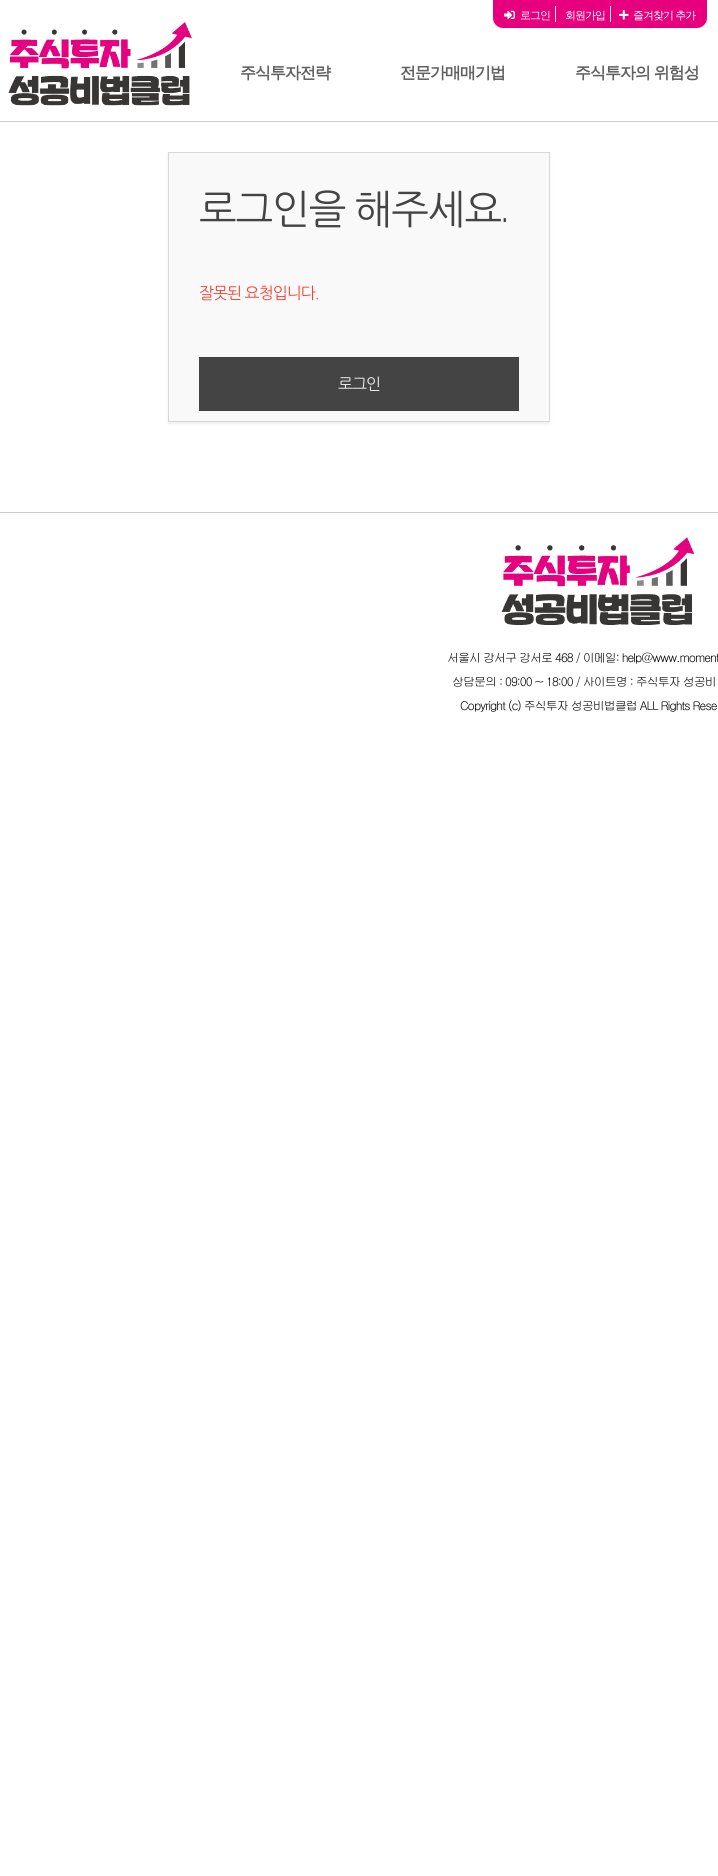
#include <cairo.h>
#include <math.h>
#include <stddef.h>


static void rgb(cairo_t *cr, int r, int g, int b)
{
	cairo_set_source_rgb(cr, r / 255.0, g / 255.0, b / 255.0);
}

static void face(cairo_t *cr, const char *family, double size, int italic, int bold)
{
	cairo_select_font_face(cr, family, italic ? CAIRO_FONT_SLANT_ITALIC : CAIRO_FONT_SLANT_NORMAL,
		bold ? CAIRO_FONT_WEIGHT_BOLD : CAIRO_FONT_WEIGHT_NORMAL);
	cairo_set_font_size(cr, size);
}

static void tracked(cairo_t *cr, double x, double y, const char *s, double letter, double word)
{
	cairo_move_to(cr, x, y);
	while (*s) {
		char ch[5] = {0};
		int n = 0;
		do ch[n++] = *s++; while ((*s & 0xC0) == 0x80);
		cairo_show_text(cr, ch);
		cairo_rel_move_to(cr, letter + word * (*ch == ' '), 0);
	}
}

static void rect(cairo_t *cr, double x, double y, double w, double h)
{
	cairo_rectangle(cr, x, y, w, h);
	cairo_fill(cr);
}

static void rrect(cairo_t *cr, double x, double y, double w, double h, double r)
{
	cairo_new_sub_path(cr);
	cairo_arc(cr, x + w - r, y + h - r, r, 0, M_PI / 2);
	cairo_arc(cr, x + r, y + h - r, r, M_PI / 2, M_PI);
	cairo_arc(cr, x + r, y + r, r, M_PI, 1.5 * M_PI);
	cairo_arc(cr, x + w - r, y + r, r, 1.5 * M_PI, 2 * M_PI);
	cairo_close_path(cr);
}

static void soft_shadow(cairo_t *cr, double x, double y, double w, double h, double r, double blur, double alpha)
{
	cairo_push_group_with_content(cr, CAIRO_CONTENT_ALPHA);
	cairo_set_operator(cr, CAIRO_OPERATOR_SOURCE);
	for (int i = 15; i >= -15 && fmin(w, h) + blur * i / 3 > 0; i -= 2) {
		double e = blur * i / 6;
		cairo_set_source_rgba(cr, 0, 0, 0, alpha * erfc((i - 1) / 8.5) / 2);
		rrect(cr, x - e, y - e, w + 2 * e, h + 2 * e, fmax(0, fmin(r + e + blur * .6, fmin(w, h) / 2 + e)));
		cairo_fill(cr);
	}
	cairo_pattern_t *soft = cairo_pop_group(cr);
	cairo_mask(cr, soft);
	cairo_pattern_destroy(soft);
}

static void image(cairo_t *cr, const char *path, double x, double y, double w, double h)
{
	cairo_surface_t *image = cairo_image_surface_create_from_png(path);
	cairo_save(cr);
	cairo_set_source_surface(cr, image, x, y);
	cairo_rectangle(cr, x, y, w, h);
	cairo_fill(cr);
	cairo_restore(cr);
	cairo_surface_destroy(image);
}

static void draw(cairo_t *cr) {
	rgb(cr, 255, 255, 255);
	cairo_paint(cr);
	rgb(cr, 230, 0, 126);
	cairo_new_path(cr);
	cairo_move_to(cr, 493, 0);
	cairo_line_to(cr, 707, 0);
	cairo_line_to(cr, 707, 18);
	cairo_curve_to(cr, 707, 23.5, 702.5, 28, 697, 28);
	cairo_line_to(cr, 503, 28);
	cairo_curve_to(cr, 497.5, 28, 493, 23.5, 493, 18);
	cairo_close_path(cr);
	cairo_fill(cr);
	rgb(cr, 238, 238, 238);
	rect(cr, 555, 6, 1, 16);
	image(cr, "image0.png", 504, 10, 11, 10);
	face(cr, "WenQuanYi Zen Hei Medium", 11, 0, 0);
	rgb(cr, 255, 255, 255);
	tracked(cr, 520, 19, "로그인", -1, 0);
	rgb(cr, 238, 238, 238);
	rect(cr, 610, 6, 1, 16);
	rgb(cr, 255, 255, 255);
	tracked(cr, 565, 19, "회원가입", -1, 0);
	image(cr, "image1.png", 619, 10, 10, 10);
	tracked(cr, 633, 19, "즐겨찾기 추가", -1, 0);
	rgb(cr, 204, 204, 204);
	rect(cr, 0, 121, 718, 1);
	image(cr, "image2.png", 8, 22, 184, 84);
	face(cr, "WenQuanYi Zen Hei", 16, 0, 1);
	rgb(cr, 95, 95, 95);
	tracked(cr, 240, 78, "주식투자전략", -1, 0);
	tracked(cr, 400, 78, "전문가매매기법", -1, 0);
	tracked(cr, 575, 78, "주식투자의 위험성", -1, 0);
	rgb(cr, 238, 238, 238);
	soft_shadow(cr, 168, 154, 382, 270, 0, 1.5, 1);
	rgb(cr, 249, 249, 249);
	rect(cr, 169, 154, 380, 267);
	cairo_rectangle(cr, 168.5, 152.5, 381, 269);
	rgb(cr, 216, 216, 216);
	cairo_set_line_width(cr, 1);
	cairo_stroke(cr);
	face(cr, "NanumGothic", 40, 0, 0);
	rgb(cr, 68, 68, 68);
	tracked(cr, 199, 222, "로그인을 해주세요", -1, -1);
	face(cr, "Raleway", 40, 0, 0);
	tracked(cr, 501, 222, ".", -1, 0);
	face(cr, "NanumGothic", 16, 0, 0);
	rgb(cr, 244, 67, 54);
	tracked(cr, 199, 298, "잘못된 요청입니다.", -1, 0);
	rgb(cr, 68, 68, 68);
	rect(cr, 199, 357, 320, 54);
	rgb(cr, 238, 238, 238);
	tracked(cr, 338, 389, "로그인", -1, 0);
	rgb(cr, 204, 204, 204);
	rect(cr, 0, 512, 718, 1);
	image(cr, "image3.png", 501, 537, 193, 88);
	face(cr, "Gulim", 12, 0, 0);
	rgb(cr, 0, 0, 0);
	tracked(cr, 447, 662, "서울시 강서구 강서로 468 / 이메일: help@www.moment", -1, 0);
	tracked(cr, 452, 686, "상담문의 : 09:00 ~ 18:00 / 사이트명 : 주식투자 성공비", -1, 0);
	tracked(cr, 460, 710, "Copyright (c) 주식투자 성공비법클럽 ALL Rights Rese", -1, 0);
}

int main(void) {
	cairo_surface_t *surface = cairo_image_surface_create(CAIRO_FORMAT_RGB24, 718, 1876);
	cairo_t *cr = cairo_create(surface);
	cairo_font_options_t *options = cairo_font_options_create();
	cairo_font_options_set_hint_metrics(options, CAIRO_HINT_METRICS_OFF);
	cairo_font_options_set_hint_style(options, CAIRO_HINT_STYLE_NONE);
	cairo_set_font_options(cr, options);
	cairo_set_miter_limit(cr, 4);
	draw(cr);
	cairo_surface_write_to_png(surface, "render.png");
	cairo_font_options_destroy(options);
	cairo_destroy(cr);
	cairo_surface_destroy(surface);
	return 0;
}
